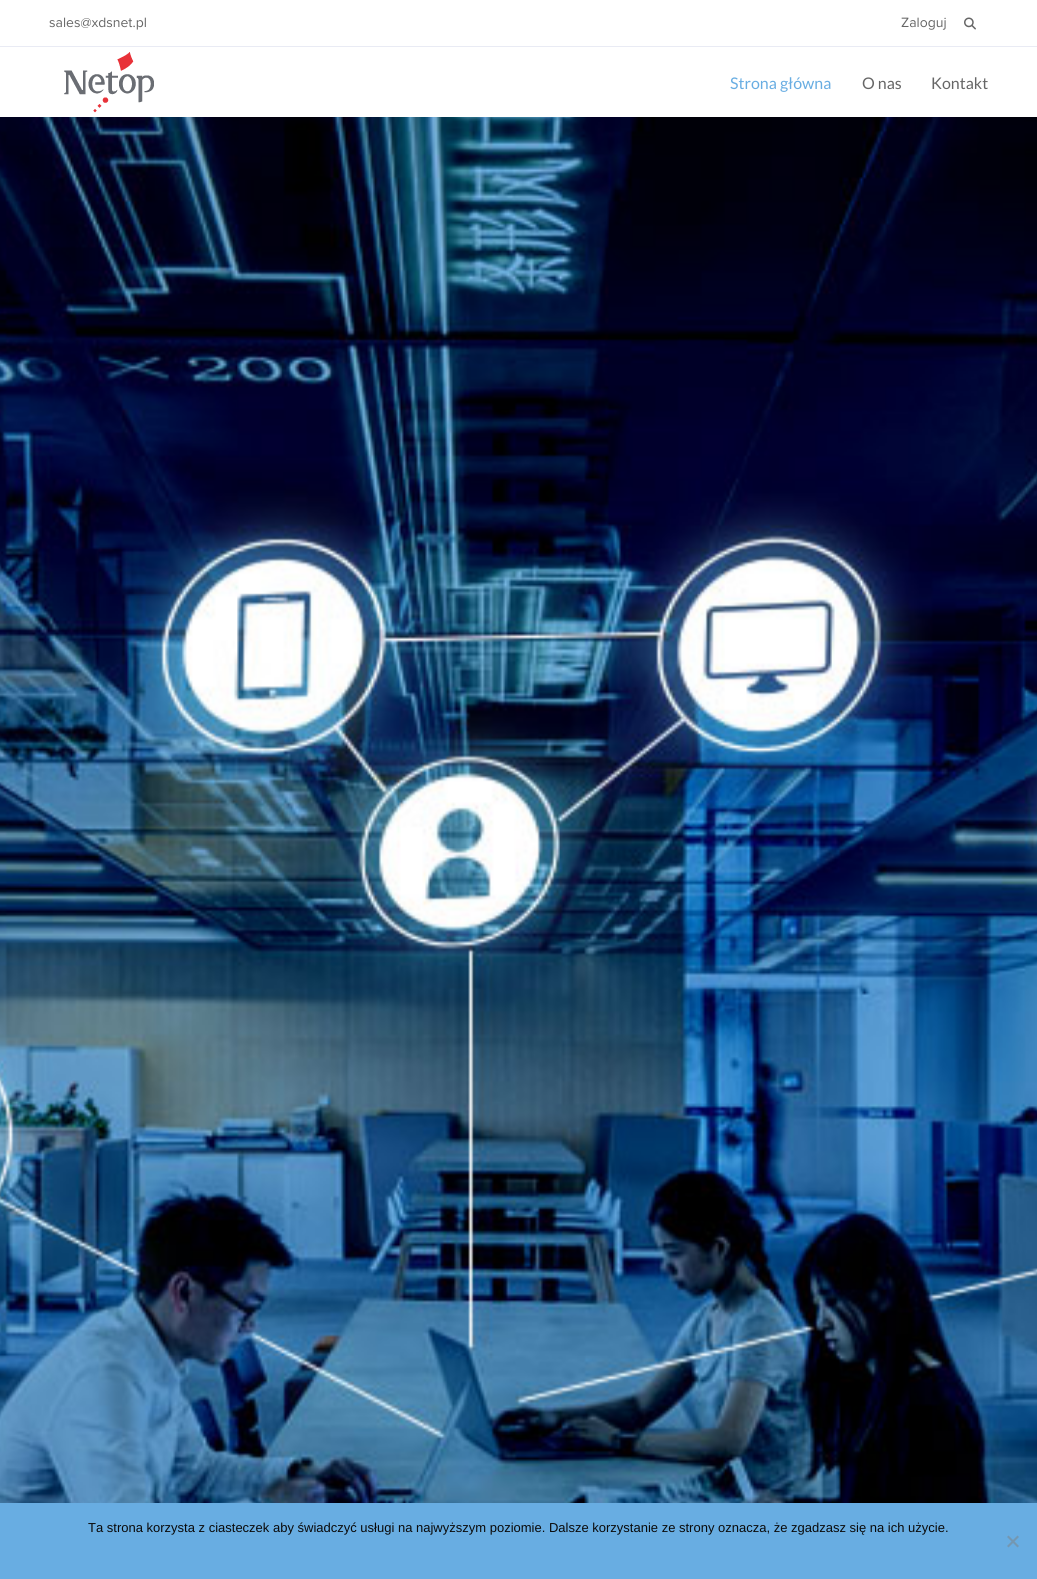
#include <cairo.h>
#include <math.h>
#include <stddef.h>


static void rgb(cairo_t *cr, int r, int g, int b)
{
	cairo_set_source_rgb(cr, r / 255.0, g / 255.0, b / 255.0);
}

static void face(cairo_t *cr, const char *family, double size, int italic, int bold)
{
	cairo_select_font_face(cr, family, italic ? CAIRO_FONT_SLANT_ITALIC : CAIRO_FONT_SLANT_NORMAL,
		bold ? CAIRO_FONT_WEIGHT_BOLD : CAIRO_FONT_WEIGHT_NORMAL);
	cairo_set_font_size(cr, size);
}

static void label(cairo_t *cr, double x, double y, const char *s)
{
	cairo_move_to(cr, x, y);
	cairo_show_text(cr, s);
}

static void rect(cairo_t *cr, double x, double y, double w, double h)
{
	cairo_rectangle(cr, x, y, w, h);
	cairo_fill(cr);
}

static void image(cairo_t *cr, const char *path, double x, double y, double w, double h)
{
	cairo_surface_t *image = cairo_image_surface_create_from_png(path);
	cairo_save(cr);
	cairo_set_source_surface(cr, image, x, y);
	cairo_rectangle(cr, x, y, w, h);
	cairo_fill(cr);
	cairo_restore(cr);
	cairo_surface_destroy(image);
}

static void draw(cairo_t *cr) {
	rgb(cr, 255, 255, 255);
	cairo_paint(cr);
	rgb(cr, 233, 235, 244);
	rect(cr, 0, 46, 1037, 1);
	face(cr, "Proxima Nova", 14, 0, 0);
	rgb(cr, 102, 102, 102);
	label(cr, 49, 27, "sales@xdsnet.pl");
	label(cr, 901, 27, "Zaloguj");
	image(cr, "image0.png", 964, 17, 12, 13);
	image(cr, "image1.png", 64, 52, 90, 61);
	face(cr, "Lato", 16, 0, 0);
	rgb(cr, 104, 173, 226);
	label(cr, 730, 89, "Strona główna");
	rgb(cr, 102, 102, 102);
	label(cr, 862, 89, "O nas");
	label(cr, 931, 89, "Kontakt");
	image(cr, "image2.png", 0, 117, 1037, 1386);
	rgb(cr, 104, 173, 226);
	rect(cr, 0, 1503, 1037, 76);
	face(cr, "Liberation Sans", 13, 0, 0);
	rgb(cr, 10, 10, 10);
	label(cr, 88, 1532, "Ta strona korzysta z ciasteczek aby świadczyć usługi na najwyższym poziomie. Dalsze korzystanie ze strony oznacza, że zgadzasz się na ich użycie.");
	rgb(cr, 116, 151, 177);
	cairo_new_path(cr);
	cairo_move_to(cr, 1017.5, 1535.5);
	cairo_line_to(cr, 1019, 1537);
	cairo_line_to(cr, 1008.5, 1547.5);
	cairo_line_to(cr, 1007, 1546);
	cairo_close_path(cr);
	cairo_fill(cr);
	cairo_new_path(cr);
	cairo_move_to(cr, 1007, 1537);
	cairo_line_to(cr, 1008.5, 1535.5);
	cairo_line_to(cr, 1019, 1546);
	cairo_line_to(cr, 1017.5, 1547.5);
	cairo_close_path(cr);
	cairo_fill(cr);
}

int main(void) {
	cairo_surface_t *surface = cairo_image_surface_create(CAIRO_FORMAT_RGB24, 1037, 1579);
	cairo_t *cr = cairo_create(surface);
	cairo_font_options_t *options = cairo_font_options_create();
	cairo_font_options_set_hint_metrics(options, CAIRO_HINT_METRICS_OFF);
	cairo_font_options_set_hint_style(options, CAIRO_HINT_STYLE_NONE);
	cairo_set_font_options(cr, options);
	cairo_set_miter_limit(cr, 4);
	draw(cr);
	cairo_surface_write_to_png(surface, "render.png");
	cairo_font_options_destroy(options);
	cairo_destroy(cr);
	cairo_surface_destroy(surface);
	return 0;
}
